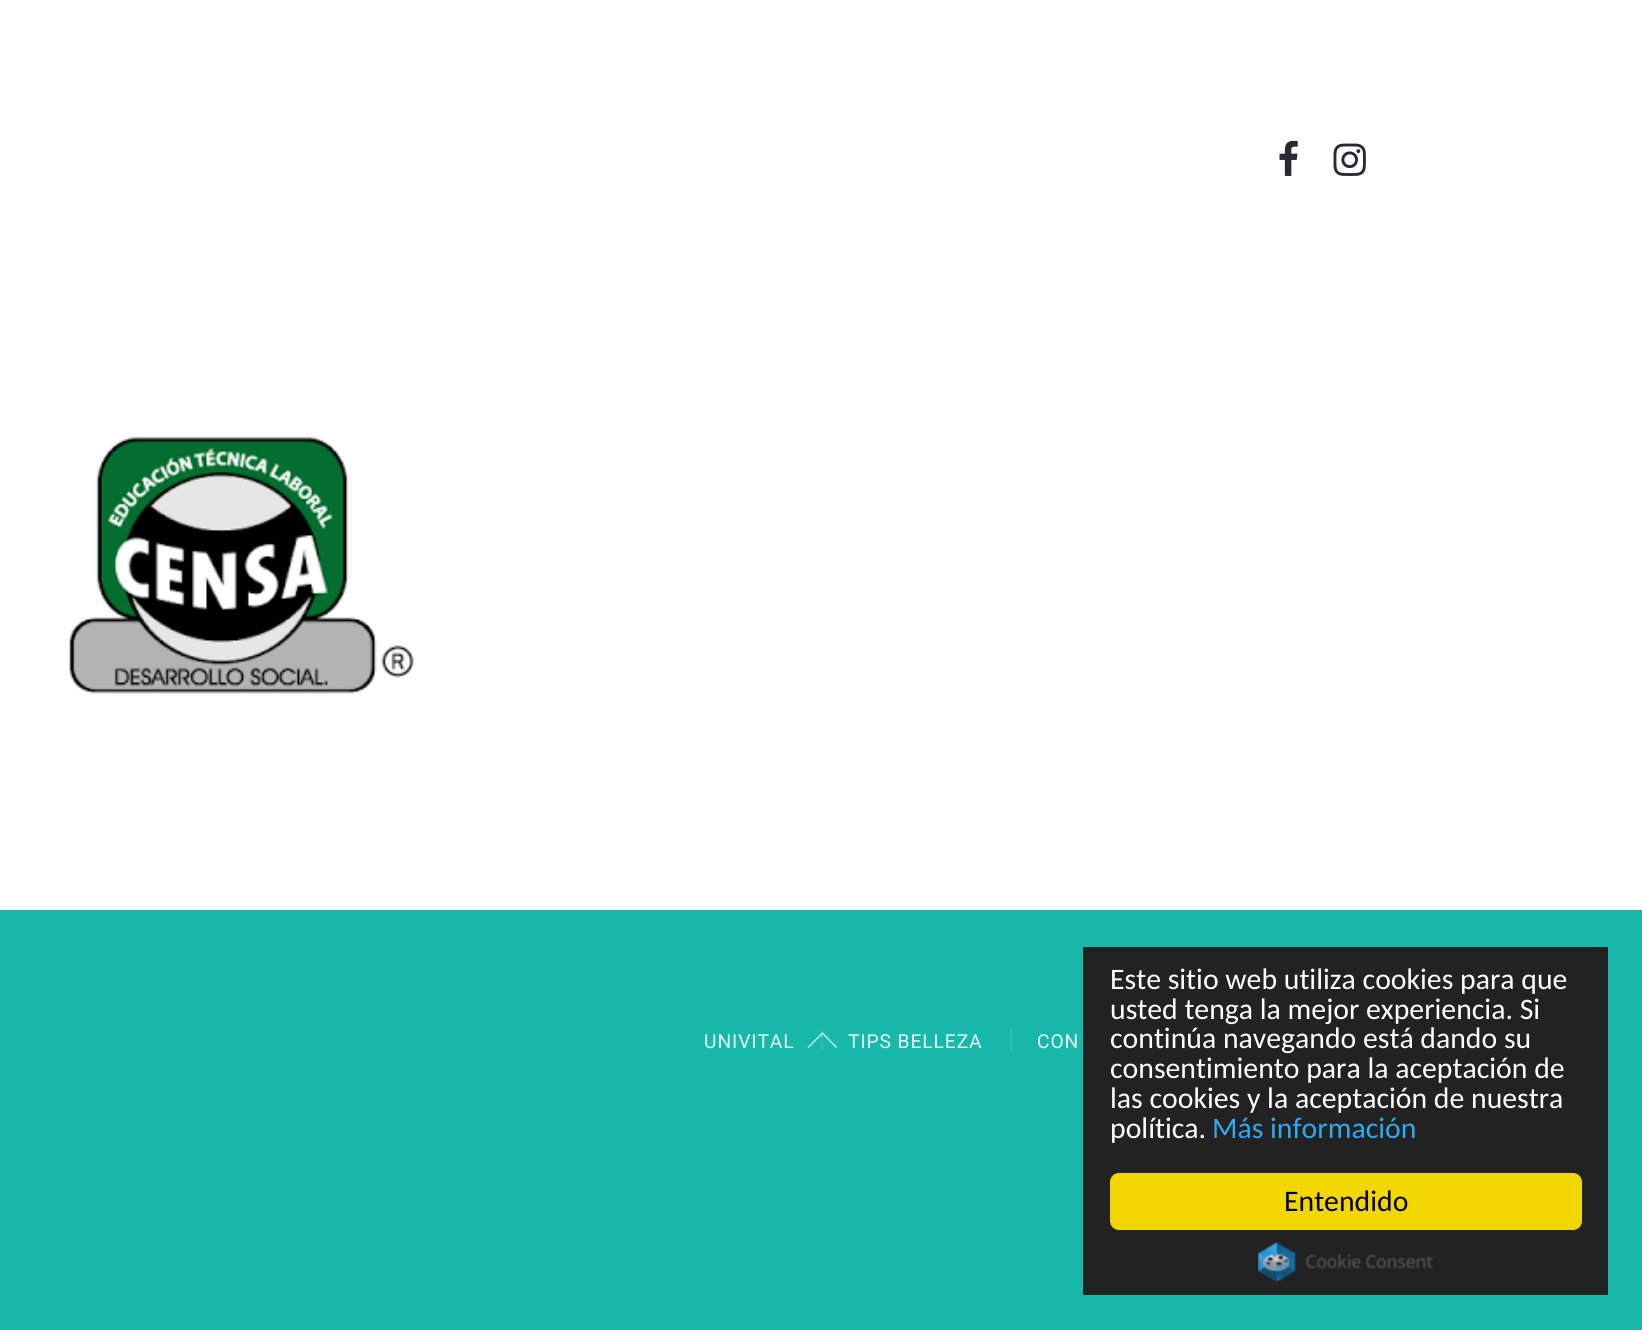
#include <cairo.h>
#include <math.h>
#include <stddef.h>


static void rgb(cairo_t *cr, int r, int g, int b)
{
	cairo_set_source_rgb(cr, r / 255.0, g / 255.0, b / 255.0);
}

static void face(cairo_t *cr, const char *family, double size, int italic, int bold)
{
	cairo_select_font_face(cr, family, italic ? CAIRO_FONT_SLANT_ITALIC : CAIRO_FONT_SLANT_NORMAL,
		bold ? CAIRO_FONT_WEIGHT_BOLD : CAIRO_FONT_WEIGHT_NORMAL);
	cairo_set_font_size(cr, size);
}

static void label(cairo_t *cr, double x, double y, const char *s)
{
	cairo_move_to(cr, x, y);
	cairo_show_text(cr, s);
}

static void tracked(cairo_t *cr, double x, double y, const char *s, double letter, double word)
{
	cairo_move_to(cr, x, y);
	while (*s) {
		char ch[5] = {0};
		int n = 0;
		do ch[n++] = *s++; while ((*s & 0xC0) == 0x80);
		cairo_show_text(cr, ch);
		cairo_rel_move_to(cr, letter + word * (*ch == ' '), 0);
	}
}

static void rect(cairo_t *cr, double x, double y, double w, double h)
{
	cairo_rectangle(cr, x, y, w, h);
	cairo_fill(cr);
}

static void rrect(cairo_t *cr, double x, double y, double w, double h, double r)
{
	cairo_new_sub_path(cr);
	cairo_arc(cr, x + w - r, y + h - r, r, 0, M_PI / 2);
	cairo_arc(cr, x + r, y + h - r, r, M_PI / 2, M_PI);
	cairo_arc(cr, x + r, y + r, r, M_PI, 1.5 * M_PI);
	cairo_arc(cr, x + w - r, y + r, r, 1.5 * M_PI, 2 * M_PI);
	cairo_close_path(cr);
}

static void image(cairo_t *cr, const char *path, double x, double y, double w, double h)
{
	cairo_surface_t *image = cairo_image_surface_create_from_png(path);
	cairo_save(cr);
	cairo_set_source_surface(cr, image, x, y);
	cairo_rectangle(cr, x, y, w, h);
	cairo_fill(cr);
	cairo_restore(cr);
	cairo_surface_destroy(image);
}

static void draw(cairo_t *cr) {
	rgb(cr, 24, 184, 170);
	cairo_paint(cr);
	rgb(cr, 255, 255, 255);
	rect(cr, 0, 0, 1642, 910);
	image(cr, "image0.png", 69, 436, 345, 258);
	image(cr, "image1.png", 1279, 140, 19, 36);
	image(cr, "image2.png", 1333, 143, 33, 33);
	image(cr, "image3.png", 807, 1032, 30, 16);
	face(cr, "Roboto", 19.25, 0, 0);
	rgb(cr, 232, 248, 247);
	tracked(cr, 704, 1048, "UNIVITAL", 0.9, 0);
	cairo_set_source_rgba(cr, 1, 1, 1, 0.1);
	rect(cr, 821, 1029, 2, 21);
	rgb(cr, 232, 248, 247);
	tracked(cr, 848, 1048, "TIPS BELLEZA", 0.9, 0);
	rgb(cr, 47, 191, 179);
	rect(cr, 1010, 1029, 2, 21);
	rgb(cr, 232, 248, 247);
	tracked(cr, 1037, 1048, "CON", 0.9, 0);
	rgb(cr, 34, 34, 34);
	rect(cr, 1083, 947, 525, 348);
	face(cr, "Carlito", 29.75, 0, 0);
	rgb(cr, 255, 255, 255);
	label(cr, 1110, 989, "Este sitio web utiliza cookies para que");
	label(cr, 1110, 1019, "usted tenga la mejor experiencia. Si");
	label(cr, 1110, 1048, "continúa navegando está dando su");
	label(cr, 1110, 1078, "consentimiento para la aceptación de");
	label(cr, 1110, 1108, "las cookies y la aceptación de nuestra");
	label(cr, 1110, 1138, "política.");
	rgb(cr, 49, 168, 240);
	label(cr, 1212, 1138, "Más información");
	rgb(cr, 241, 214, 0);
	rrect(cr, 1110, 1173, 472, 57, 9);
	cairo_fill(cr);
	rgb(cr, 0, 0, 0);
	label(cr, 1284, 1211, "Entendido");
	image(cr, "image4.png", 1258, 1242, 175, 40);
}

int main(void) {
	cairo_surface_t *surface = cairo_image_surface_create(CAIRO_FORMAT_RGB24, 1642, 1330);
	cairo_t *cr = cairo_create(surface);
	cairo_font_options_t *options = cairo_font_options_create();
	cairo_font_options_set_hint_metrics(options, CAIRO_HINT_METRICS_OFF);
	cairo_font_options_set_hint_style(options, CAIRO_HINT_STYLE_NONE);
	cairo_set_font_options(cr, options);
	cairo_set_miter_limit(cr, 4);
	draw(cr);
	cairo_surface_write_to_png(surface, "render.png");
	cairo_font_options_destroy(options);
	cairo_destroy(cr);
	cairo_surface_destroy(surface);
	return 0;
}
